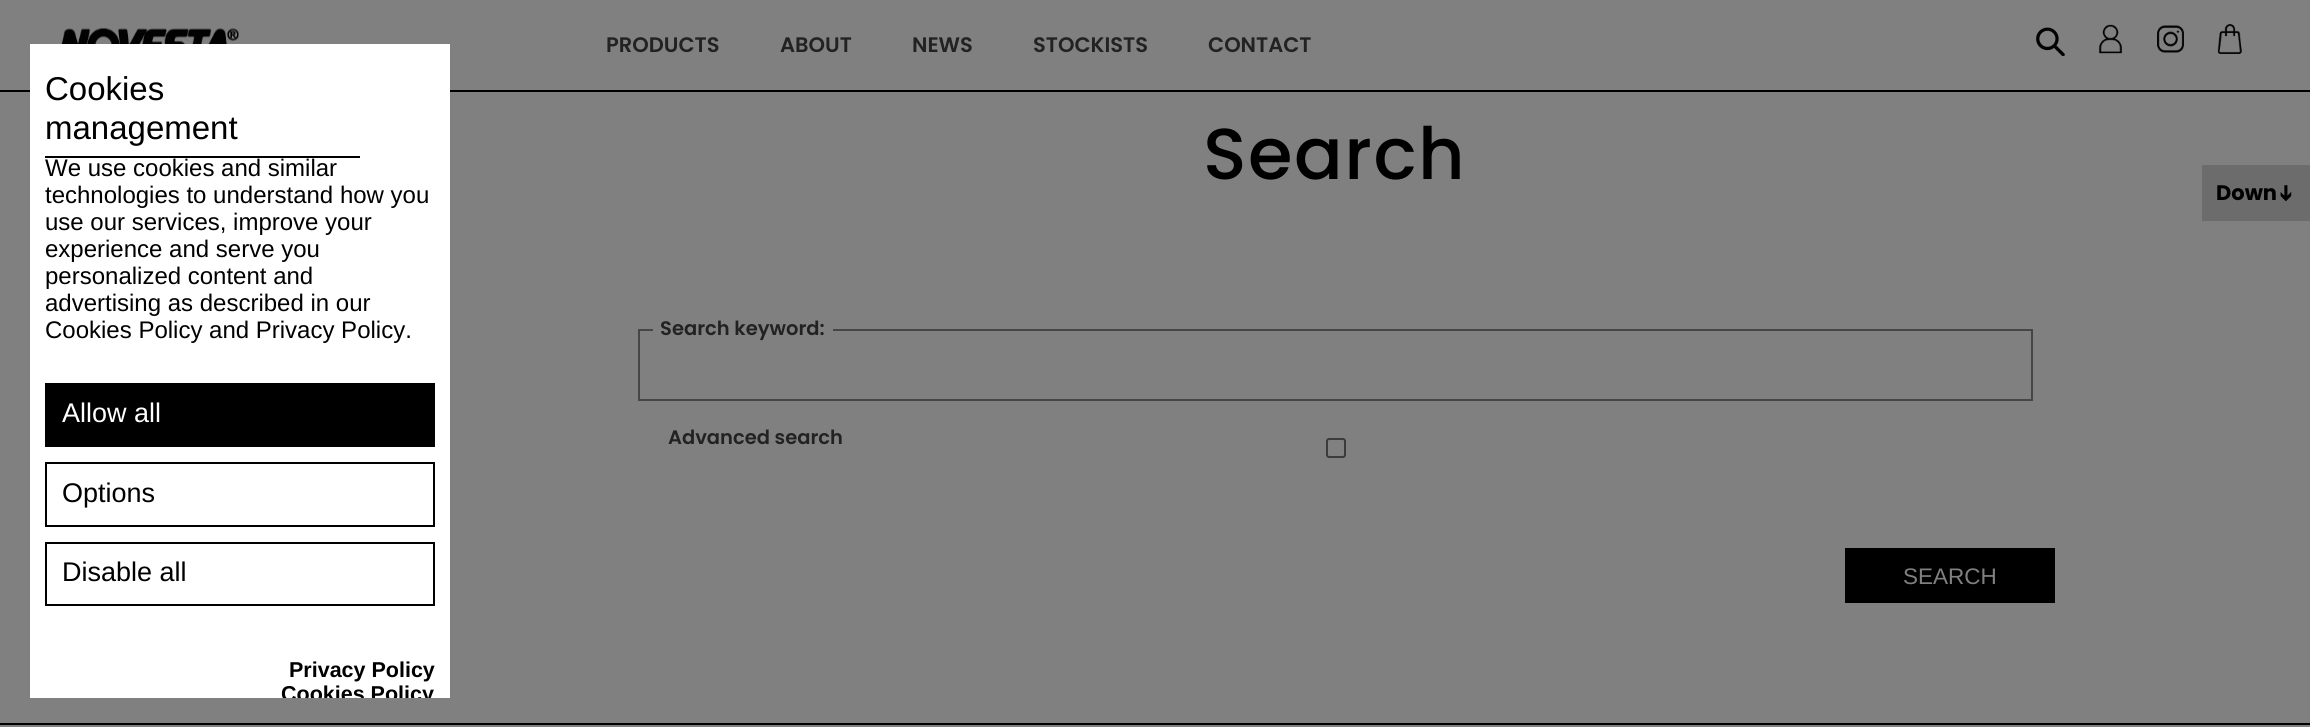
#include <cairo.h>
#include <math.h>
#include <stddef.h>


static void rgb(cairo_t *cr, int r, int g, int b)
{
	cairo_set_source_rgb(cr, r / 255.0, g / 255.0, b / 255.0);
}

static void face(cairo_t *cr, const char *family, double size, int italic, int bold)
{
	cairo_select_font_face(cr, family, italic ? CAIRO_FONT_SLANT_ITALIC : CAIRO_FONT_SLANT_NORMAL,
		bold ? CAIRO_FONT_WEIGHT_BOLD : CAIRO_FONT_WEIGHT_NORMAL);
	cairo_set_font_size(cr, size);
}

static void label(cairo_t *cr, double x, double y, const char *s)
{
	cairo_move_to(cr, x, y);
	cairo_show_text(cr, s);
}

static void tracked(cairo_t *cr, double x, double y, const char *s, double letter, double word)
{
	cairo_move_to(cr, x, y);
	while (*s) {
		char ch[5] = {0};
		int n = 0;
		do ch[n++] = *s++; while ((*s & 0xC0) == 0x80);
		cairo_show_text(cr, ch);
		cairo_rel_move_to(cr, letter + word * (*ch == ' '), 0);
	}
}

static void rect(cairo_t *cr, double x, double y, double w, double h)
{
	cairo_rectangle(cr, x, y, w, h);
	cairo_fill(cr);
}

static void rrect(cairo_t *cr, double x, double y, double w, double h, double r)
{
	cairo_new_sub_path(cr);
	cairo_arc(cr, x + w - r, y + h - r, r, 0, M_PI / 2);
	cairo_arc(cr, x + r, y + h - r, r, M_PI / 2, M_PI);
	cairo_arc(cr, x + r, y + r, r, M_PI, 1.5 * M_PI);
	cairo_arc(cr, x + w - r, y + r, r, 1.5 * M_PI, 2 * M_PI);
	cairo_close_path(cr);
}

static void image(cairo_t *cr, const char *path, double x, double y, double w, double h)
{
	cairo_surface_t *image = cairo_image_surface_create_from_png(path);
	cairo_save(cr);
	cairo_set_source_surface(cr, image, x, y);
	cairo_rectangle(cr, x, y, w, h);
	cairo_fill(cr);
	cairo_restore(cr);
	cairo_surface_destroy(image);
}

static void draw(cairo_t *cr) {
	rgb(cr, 128, 128, 128);
	cairo_paint(cr);
	rgb(cr, 0, 0, 0);
	rect(cr, 0, 90, 2310, 2);
	rgb(cr, 255, 255, 255);
	rect(cr, 30, 44, 420, 654);
	rgb(cr, 0, 0, 0);
	rect(cr, 45, 156, 315, 2);
	face(cr, "Liberation Sans", 33, 0, 0);
	label(cr, 45, 100, "Cookies");
	label(cr, 45, 139, "management");
	face(cr, "Liberation Sans", 24, 0, 0);
	label(cr, 45, 176, "We use cookies and similar");
	label(cr, 45, 203, "technologies to understand how you");
	label(cr, 45, 230, "use our services, improve your");
	label(cr, 45, 257, "experience and serve you");
	label(cr, 45, 284, "personalized content and");
	label(cr, 45, 311, "advertising as described in our");
	label(cr, 45, 338, "Cookies Policy and Privacy Policy.");
	rect(cr, 45, 383, 390, 64);
	face(cr, "Liberation Sans", 27, 0, 0);
	rgb(cr, 255, 255, 255);
	label(cr, 62, 422, "Allow all");
	cairo_rectangle(cr, 46, 463, 388, 63);
	rgb(cr, 0, 0, 0);
	cairo_stroke(cr);
	label(cr, 62, 502, "Options");
	cairo_rectangle(cr, 46, 543, 388, 62);
	cairo_stroke(cr);
	label(cr, 62, 581, "Disable all");
	face(cr, "Liberation Sans", 21.5, 0, 1);
	label(cr, 289, 677, "Privacy Policy");
	cairo_save(cr);
	cairo_rectangle(cr, 30, 44, 420, 654);
	cairo_clip(cr);
	label(cr, 281, 701, "Cookies Policy");
	cairo_restore(cr);
	image(cr, "image0.png", 61, 28, 178, 16);
	face(cr, "Poppins SemiBold", 21, 0, 0);
	rgb(cr, 34, 34, 34);
	label(cr, 606, 52, "PRODUCTS");
	label(cr, 780, 52, "ABOUT");
	label(cr, 912, 52, "NEWS");
	label(cr, 1033, 52, "STOCKISTS");
	label(cr, 1208, 52, "CONTACT");
	image(cr, "image1.png", 2036, 27, 29, 29);
	image(cr, "image2.png", 2099, 24, 23, 30);
	image(cr, "image3.png", 2157, 25, 27, 28);
	image(cr, "image4.png", 2217, 24, 25, 30);
	face(cr, "Poppins Medium", 72, 0, 0);
	rgb(cr, 0, 0, 0);
	tracked(cr, 1203, 179, "Search", 1.5, 0);
	cairo_rectangle(cr, 639, 330, 1393, 70);
	rgb(cr, 70, 70, 70);
	cairo_stroke(cr);
	rgb(cr, 128, 128, 128);
	rect(cr, 653, 329, 180, 2);
	face(cr, "Poppins SemiBold", 19.5, 0, 0);
	rgb(cr, 34, 34, 34);
	label(cr, 660, 335, "Search keyword:");
	label(cr, 668, 444, "Advanced search");
	rrect(cr, 1327, 439, 18, 18, 2);
	rgb(cr, 59, 59, 59);
	cairo_stroke(cr);
	rgb(cr, 0, 0, 0);
	rect(cr, 1845, 548, 210, 55);
	face(cr, "Liberation Sans", 22.5, 0, 0);
	rgb(cr, 128, 128, 128);
	label(cr, 1903, 584, "SEARCH");
	rgb(cr, 0, 0, 0);
	rect(cr, 0, 723, 2310, 2);
	rgb(cr, 108, 108, 108);
	rect(cr, 2202, 165, 108, 56);
	face(cr, "Poppins", 21, 0, 1);
	rgb(cr, 0, 0, 0);
	label(cr, 2216, 200, "Down");
	face(cr, "DejaVu Sans", 21, 0, 1);
	cairo_save(cr);
	cairo_translate(cr, 2279, 184);
	cairo_rotate(cr, 90 * M_PI / 180);
	label(cr, 0, 0, "➔");
	cairo_restore(cr);
}

int main(void) {
	cairo_surface_t *surface = cairo_image_surface_create(CAIRO_FORMAT_RGB24, 2310, 727);
	cairo_t *cr = cairo_create(surface);
	cairo_font_options_t *options = cairo_font_options_create();
	cairo_font_options_set_hint_metrics(options, CAIRO_HINT_METRICS_OFF);
	cairo_font_options_set_hint_style(options, CAIRO_HINT_STYLE_NONE);
	cairo_set_font_options(cr, options);
	cairo_set_miter_limit(cr, 4);
	draw(cr);
	cairo_surface_write_to_png(surface, "render.png");
	cairo_font_options_destroy(options);
	cairo_destroy(cr);
	cairo_surface_destroy(surface);
	return 0;
}
